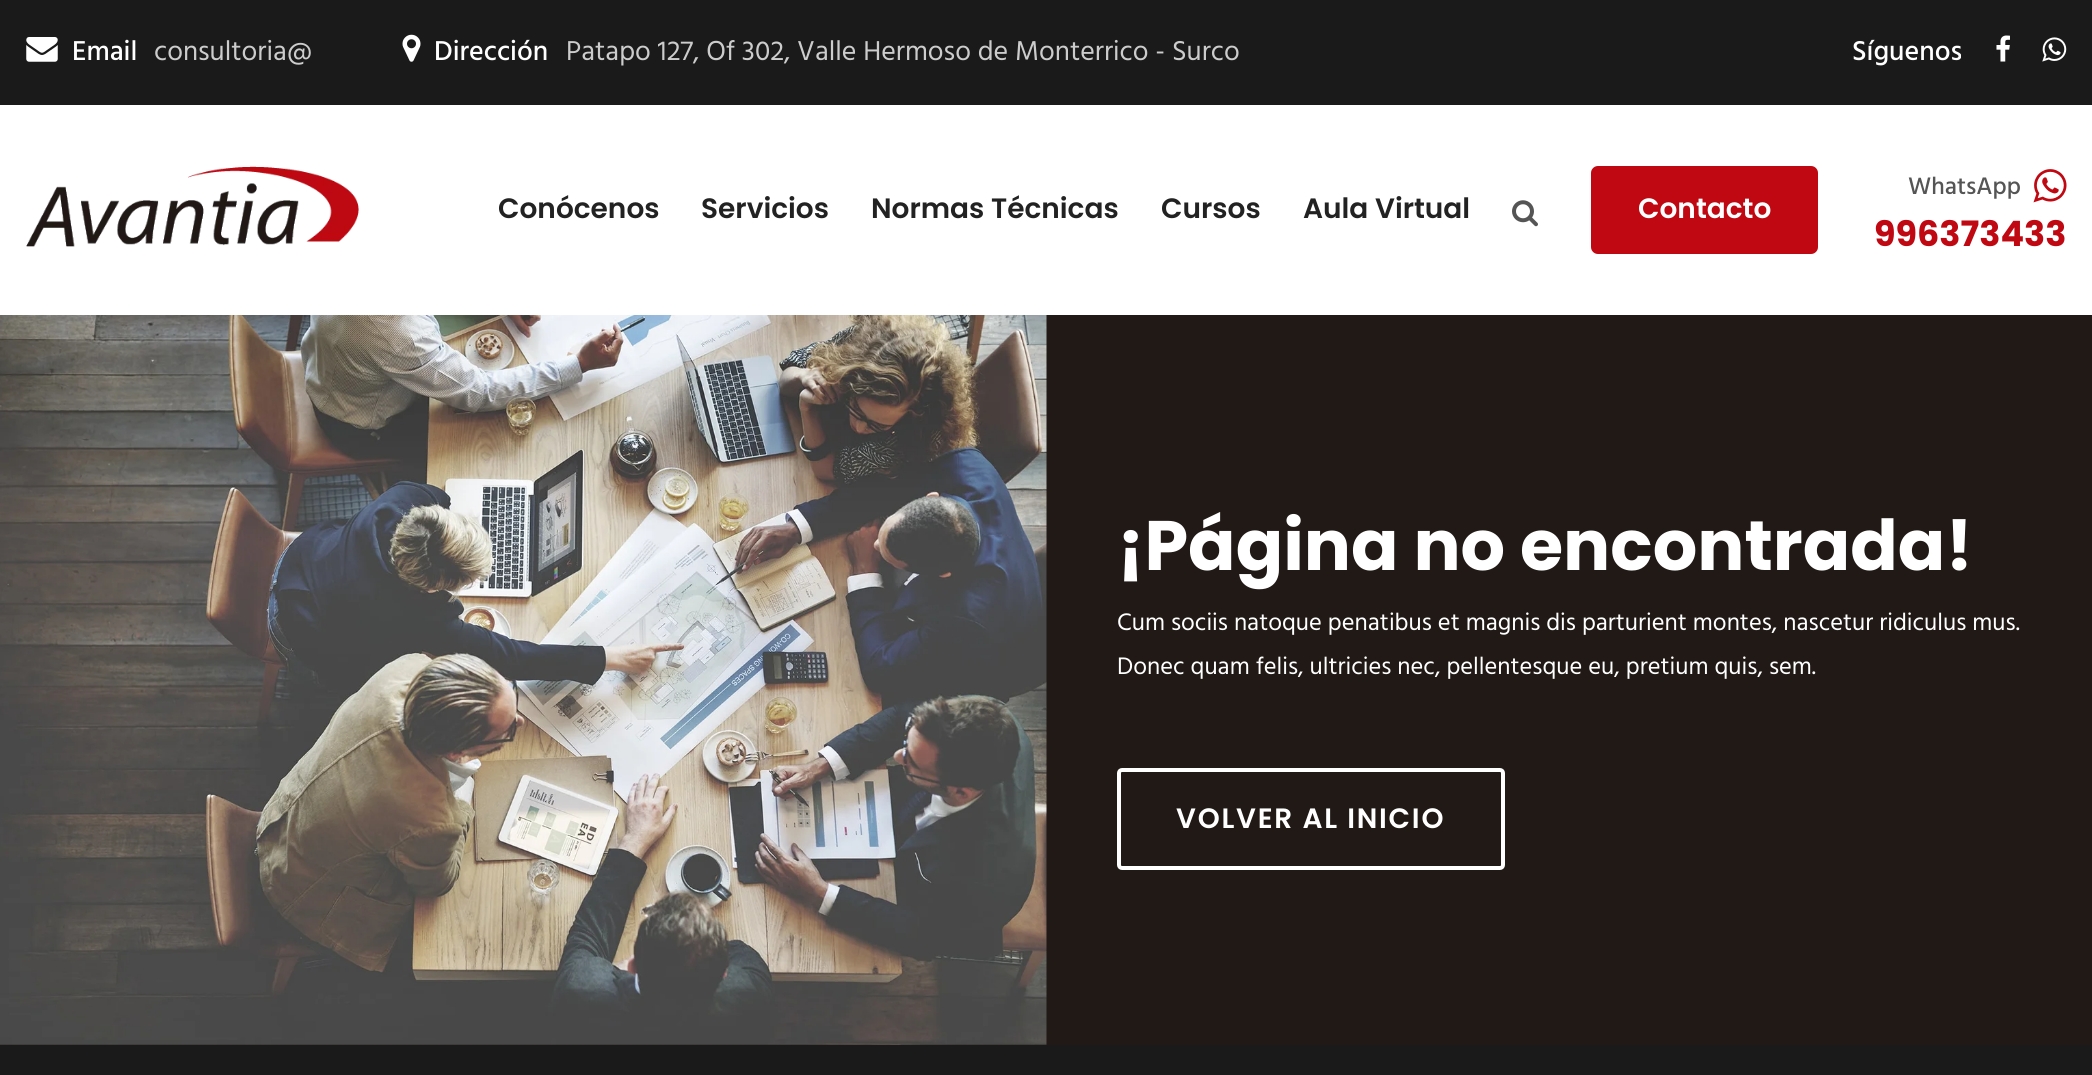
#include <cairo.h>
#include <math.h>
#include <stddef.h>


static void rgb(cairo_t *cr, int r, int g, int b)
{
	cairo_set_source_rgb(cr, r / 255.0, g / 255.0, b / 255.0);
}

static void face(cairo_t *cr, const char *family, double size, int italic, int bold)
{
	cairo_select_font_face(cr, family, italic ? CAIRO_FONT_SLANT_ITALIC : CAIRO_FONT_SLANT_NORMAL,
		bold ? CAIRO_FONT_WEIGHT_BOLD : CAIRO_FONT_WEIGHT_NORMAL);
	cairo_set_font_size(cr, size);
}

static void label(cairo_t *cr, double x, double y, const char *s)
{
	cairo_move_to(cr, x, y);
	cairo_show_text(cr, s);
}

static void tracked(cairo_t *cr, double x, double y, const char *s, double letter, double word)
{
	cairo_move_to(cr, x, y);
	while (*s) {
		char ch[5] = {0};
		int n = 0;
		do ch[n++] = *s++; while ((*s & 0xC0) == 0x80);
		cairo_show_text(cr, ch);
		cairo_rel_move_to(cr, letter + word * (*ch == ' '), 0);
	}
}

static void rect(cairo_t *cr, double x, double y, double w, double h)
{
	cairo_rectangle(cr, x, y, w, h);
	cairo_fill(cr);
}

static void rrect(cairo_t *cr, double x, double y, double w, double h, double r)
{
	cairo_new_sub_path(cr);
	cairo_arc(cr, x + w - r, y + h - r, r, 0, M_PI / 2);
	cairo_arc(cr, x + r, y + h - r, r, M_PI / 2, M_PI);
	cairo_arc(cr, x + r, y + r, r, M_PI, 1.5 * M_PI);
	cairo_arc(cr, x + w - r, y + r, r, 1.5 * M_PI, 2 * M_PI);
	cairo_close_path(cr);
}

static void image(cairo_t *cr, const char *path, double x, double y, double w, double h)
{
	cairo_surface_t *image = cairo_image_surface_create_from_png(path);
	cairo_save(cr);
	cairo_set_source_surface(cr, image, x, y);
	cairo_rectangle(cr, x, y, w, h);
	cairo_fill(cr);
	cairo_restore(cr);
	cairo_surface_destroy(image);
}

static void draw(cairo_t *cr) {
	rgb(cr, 255, 255, 255);
	cairo_paint(cr);
	rgb(cr, 26, 26, 26);
	rect(cr, 0, 0, 2092, 105);
	image(cr, "image0.png", 26, 37, 32, 25);
	face(cr, "Hind Medium", 28, 0, 0);
	rgb(cr, 255, 255, 255);
	label(cr, 72, 60, "Email");
	face(cr, "Hind", 28, 0, 0);
	rgb(cr, 204, 204, 204);
	label(cr, 154, 60, "consultoria@");
	image(cr, "image1.png", 402, 34, 19, 28);
	face(cr, "Hind Medium", 28, 0, 0);
	rgb(cr, 255, 255, 255);
	label(cr, 434, 60, "Dirección");
	face(cr, "Hind", 28, 0, 0);
	rgb(cr, 204, 204, 204);
	label(cr, 566, 60, "Patapo 127, Of 302, Valle Hermoso de Monterrico - Surco");
	face(cr, "Hind Medium", 28, 0, 0);
	rgb(cr, 255, 255, 255);
	label(cr, 1852, 60, "Síguenos");
	image(cr, "image2.png", 1996, 35, 14, 27);
	image(cr, "image3.png", 2042, 37, 25, 25);
	image(cr, "image4.png", 26, 166, 333, 81);
	face(cr, "Poppins SemiBold", 28, 0, 0);
	rgb(cr, 34, 34, 34);
	label(cr, 498, 218, "Conócenos");
	label(cr, 701, 218, "Servicios");
	label(cr, 871, 218, "Normas Técnicas");
	label(cr, 1161, 218, "Cursos");
	label(cr, 1303, 218, "Aula Virtual");
	image(cr, "image5.png", 1512, 200, 26, 27);
	rgb(cr, 191, 8, 17);
	rrect(cr, 1593, 168, 223, 84, 5);
	cairo_fill_preserve(cr);
	cairo_set_line_width(cr, 4);
	cairo_stroke(cr);
	rgb(cr, 255, 255, 255);
	label(cr, 1638, 218, "Contacto");
	face(cr, "Hind Medium", 24.5, 0, 0);
	rgb(cr, 85, 85, 85);
	label(cr, 1908, 194, "WhatsApp");
	image(cr, "image6.png", 2033, 169, 34, 34);
	face(cr, "Poppins", 35, 0, 1);
	rgb(cr, 191, 8, 17);
	label(cr, 1874, 246, "996373433");
	rgb(cr, 33, 25, 21);
	rect(cr, 0, 315, 2092, 730);
	image(cr, "image7.png", 0, 315, 1047, 730);
	face(cr, "Poppins", 70, 0, 1);
	rgb(cr, 255, 255, 255);
	label(cr, 1117, 570, "¡Página no encontrada!");
	face(cr, "Hind", 24.5, 0, 0);
	label(cr, 1117, 630, "Cum sociis natoque penatibus et magnis dis parturient montes, nascetur ridiculus mus.");
	label(cr, 1117, 674, "Donec quam felis, ultricies nec, pellentesque eu, pretium quis, sem.");
	rrect(cr, 1119, 770, 384, 98, 3);
	cairo_stroke(cr);
	face(cr, "Poppins SemiBold", 28, 0, 0);
	tracked(cr, 1176, 828, "VOLVER AL INICIO", 1.75, 0);
	rgb(cr, 26, 26, 26);
	rect(cr, 0, 1045, 2092, 30);
}

int main(void) {
	cairo_surface_t *surface = cairo_image_surface_create(CAIRO_FORMAT_RGB24, 2092, 1075);
	cairo_t *cr = cairo_create(surface);
	cairo_font_options_t *options = cairo_font_options_create();
	cairo_font_options_set_hint_metrics(options, CAIRO_HINT_METRICS_OFF);
	cairo_font_options_set_hint_style(options, CAIRO_HINT_STYLE_NONE);
	cairo_set_font_options(cr, options);
	cairo_set_miter_limit(cr, 4);
	draw(cr);
	cairo_surface_write_to_png(surface, "render.png");
	cairo_font_options_destroy(options);
	cairo_destroy(cr);
	cairo_surface_destroy(surface);
	return 0;
}
